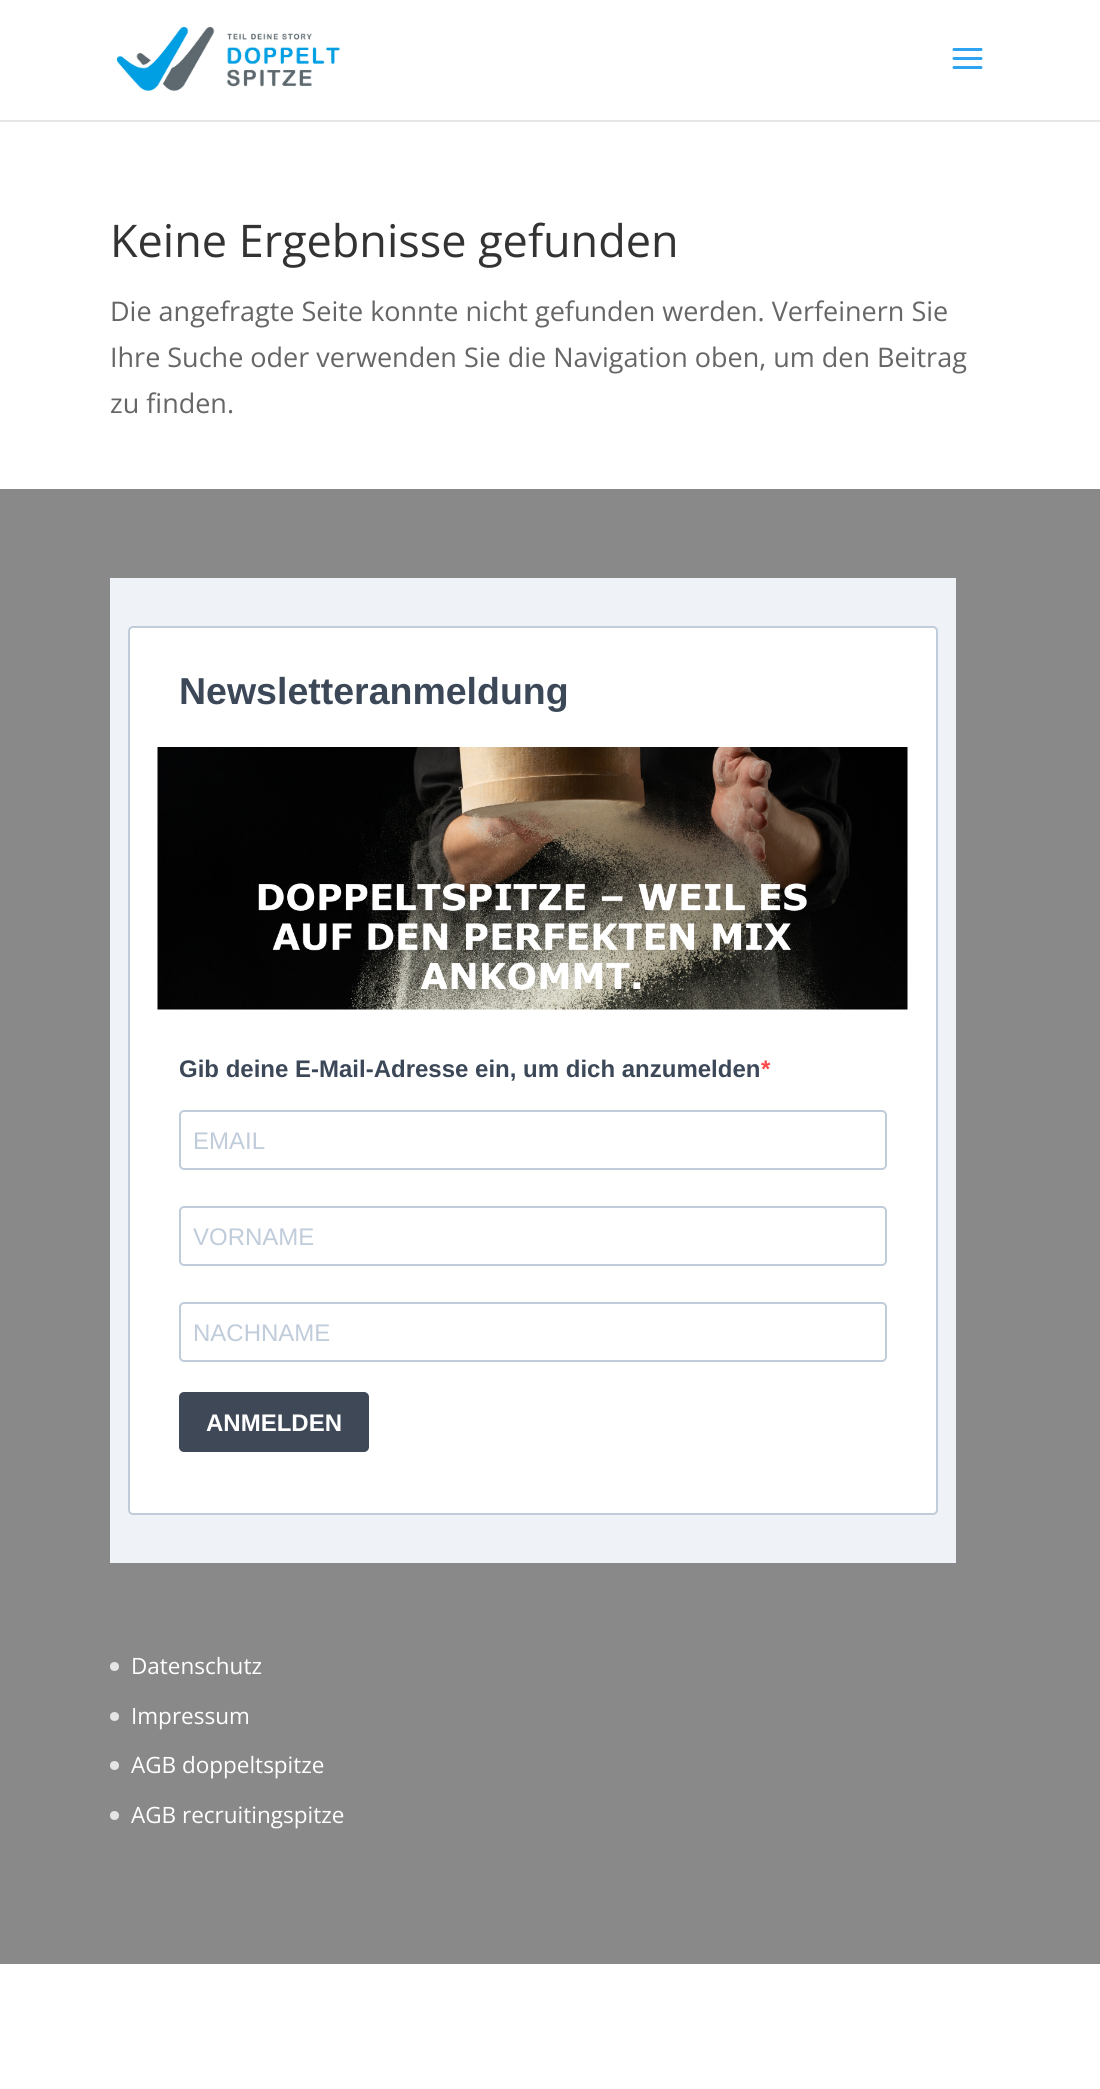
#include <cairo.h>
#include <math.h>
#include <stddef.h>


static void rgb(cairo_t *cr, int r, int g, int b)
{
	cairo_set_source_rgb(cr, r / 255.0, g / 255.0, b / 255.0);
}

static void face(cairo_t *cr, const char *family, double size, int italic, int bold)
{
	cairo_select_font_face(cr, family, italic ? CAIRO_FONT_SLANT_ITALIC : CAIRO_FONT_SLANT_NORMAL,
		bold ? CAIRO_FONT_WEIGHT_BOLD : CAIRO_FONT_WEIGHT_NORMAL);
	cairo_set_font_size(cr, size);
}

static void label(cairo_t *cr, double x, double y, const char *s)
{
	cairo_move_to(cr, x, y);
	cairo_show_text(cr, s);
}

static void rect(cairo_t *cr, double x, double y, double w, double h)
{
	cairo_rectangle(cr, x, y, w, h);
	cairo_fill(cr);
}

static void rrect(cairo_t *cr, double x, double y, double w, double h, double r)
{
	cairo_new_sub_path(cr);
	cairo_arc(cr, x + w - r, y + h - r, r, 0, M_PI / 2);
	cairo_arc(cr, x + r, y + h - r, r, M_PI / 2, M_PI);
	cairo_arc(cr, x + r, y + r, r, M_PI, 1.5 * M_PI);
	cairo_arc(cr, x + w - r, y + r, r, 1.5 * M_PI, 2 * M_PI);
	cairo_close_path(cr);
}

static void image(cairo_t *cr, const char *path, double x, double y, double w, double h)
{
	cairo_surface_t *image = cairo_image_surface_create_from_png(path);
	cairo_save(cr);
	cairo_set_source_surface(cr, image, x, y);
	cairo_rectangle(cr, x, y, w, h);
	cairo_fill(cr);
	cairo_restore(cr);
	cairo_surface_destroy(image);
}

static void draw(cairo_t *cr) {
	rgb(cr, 255, 255, 255);
	cairo_paint(cr);
	rgb(cr, 230, 230, 230);
	rect(cr, 0, 120, 1100, 2);
	image(cr, "image0.png", 117, 27, 223, 64);
	image(cr, "image1.png", 952, 48, 31, 21);
	face(cr, "Open Sans", 45, 0, 0);
	rgb(cr, 51, 51, 51);
	label(cr, 110, 257, "Keine Ergebnisse gefunden");
	face(cr, "Open Sans", 27, 0, 0);
	rgb(cr, 102, 102, 102);
	label(cr, 110, 321, "Die angefragte Seite konnte nicht gefunden werden. Verfeinern Sie");
	label(cr, 110, 367, "Ihre Suche oder verwenden Sie die Navigation oben, um den Beitrag");
	label(cr, 110, 413, "zu finden.");
	rgb(cr, 137, 137, 137);
	rect(cr, 0, 489, 1100, 1475);
	rgb(cr, 239, 242, 247);
	rect(cr, 110, 578, 846, 985);
	rgb(cr, 255, 255, 255);
	rrect(cr, 129, 627, 808, 887, 4);
	cairo_fill_preserve(cr);
	rgb(cr, 192, 204, 217);
	cairo_stroke(cr);
	face(cr, "Liberation Sans", 37.5, 0, 1);
	rgb(cr, 60, 72, 88);
	label(cr, 179, 704, "Newsletteranmeldung");
	image(cr, "image2.png", 157, 747, 751, 263);
	face(cr, "Liberation Sans", 24, 0, 1);
	label(cr, 179, 1077, "Gib deine E-Mail-Adresse ein, um dich anzumelden");
	rgb(cr, 255, 73, 73);
	label(cr, 761, 1077, "*");
	rrect(cr, 180, 1111, 706, 58, 4);
	rgb(cr, 192, 204, 218);
	cairo_stroke(cr);
	face(cr, "Liberation Sans", 24, 0, 0);
	label(cr, 193, 1149, "EMAIL");
	rrect(cr, 180, 1207, 706, 58, 4);
	cairo_stroke(cr);
	label(cr, 193, 1245, "VORNAME");
	rrect(cr, 180, 1303, 706, 58, 4);
	cairo_stroke(cr);
	label(cr, 193, 1341, "NACHNAME");
	rgb(cr, 62, 72, 87);
	rrect(cr, 179, 1392, 190, 60, 5);
	cairo_fill(cr);
	face(cr, "Liberation Sans", 24, 0, 1);
	rgb(cr, 255, 255, 255);
	label(cr, 206, 1431, "ANMELDEN");
	rgb(cr, 229, 229, 229);
	cairo_new_path(cr);
	cairo_arc(cr, 114.5, 1666.5, 4.5, 0, 2 * M_PI);
	cairo_fill(cr);
	face(cr, "Open Sans", 22.5, 0, 0);
	rgb(cr, 255, 255, 255);
	label(cr, 131, 1674, "Datenschutz");
	rgb(cr, 229, 229, 229);
	cairo_new_path(cr);
	cairo_arc(cr, 114.5, 1716.5, 4.5, 0, 2 * M_PI);
	cairo_fill(cr);
	rgb(cr, 255, 255, 255);
	label(cr, 131, 1724, "Impressum");
	rgb(cr, 229, 229, 229);
	cairo_new_path(cr);
	cairo_arc(cr, 114.5, 1765.5, 4.5, 0, 2 * M_PI);
	cairo_fill(cr);
	rgb(cr, 255, 255, 255);
	label(cr, 131, 1773, "AGB doppeltspitze");
	rgb(cr, 229, 229, 229);
	cairo_new_path(cr);
	cairo_arc(cr, 114.5, 1815.5, 4.5, 0, 2 * M_PI);
	cairo_fill(cr);
	rgb(cr, 255, 255, 255);
	label(cr, 131, 1823, "AGB recruitingspitze");
}

int main(void) {
	cairo_surface_t *surface = cairo_image_surface_create(CAIRO_FORMAT_RGB24, 1100, 2089);
	cairo_t *cr = cairo_create(surface);
	cairo_font_options_t *options = cairo_font_options_create();
	cairo_font_options_set_hint_metrics(options, CAIRO_HINT_METRICS_OFF);
	cairo_font_options_set_hint_style(options, CAIRO_HINT_STYLE_NONE);
	cairo_set_font_options(cr, options);
	cairo_set_miter_limit(cr, 4);
	draw(cr);
	cairo_surface_write_to_png(surface, "render.png");
	cairo_font_options_destroy(options);
	cairo_destroy(cr);
	cairo_surface_destroy(surface);
	return 0;
}
